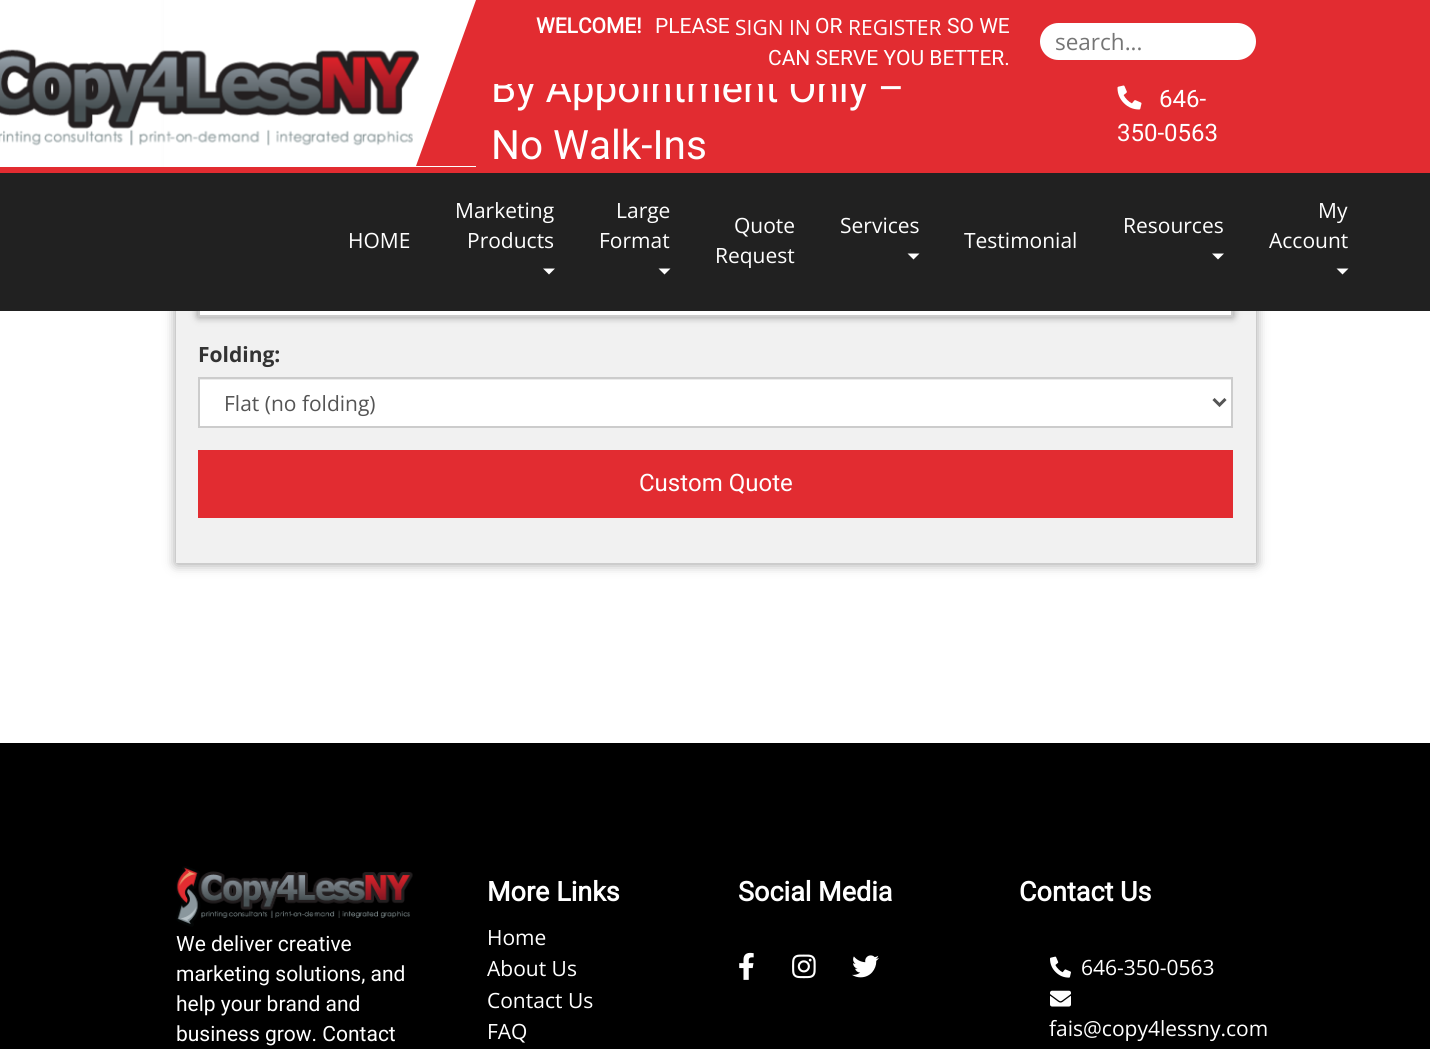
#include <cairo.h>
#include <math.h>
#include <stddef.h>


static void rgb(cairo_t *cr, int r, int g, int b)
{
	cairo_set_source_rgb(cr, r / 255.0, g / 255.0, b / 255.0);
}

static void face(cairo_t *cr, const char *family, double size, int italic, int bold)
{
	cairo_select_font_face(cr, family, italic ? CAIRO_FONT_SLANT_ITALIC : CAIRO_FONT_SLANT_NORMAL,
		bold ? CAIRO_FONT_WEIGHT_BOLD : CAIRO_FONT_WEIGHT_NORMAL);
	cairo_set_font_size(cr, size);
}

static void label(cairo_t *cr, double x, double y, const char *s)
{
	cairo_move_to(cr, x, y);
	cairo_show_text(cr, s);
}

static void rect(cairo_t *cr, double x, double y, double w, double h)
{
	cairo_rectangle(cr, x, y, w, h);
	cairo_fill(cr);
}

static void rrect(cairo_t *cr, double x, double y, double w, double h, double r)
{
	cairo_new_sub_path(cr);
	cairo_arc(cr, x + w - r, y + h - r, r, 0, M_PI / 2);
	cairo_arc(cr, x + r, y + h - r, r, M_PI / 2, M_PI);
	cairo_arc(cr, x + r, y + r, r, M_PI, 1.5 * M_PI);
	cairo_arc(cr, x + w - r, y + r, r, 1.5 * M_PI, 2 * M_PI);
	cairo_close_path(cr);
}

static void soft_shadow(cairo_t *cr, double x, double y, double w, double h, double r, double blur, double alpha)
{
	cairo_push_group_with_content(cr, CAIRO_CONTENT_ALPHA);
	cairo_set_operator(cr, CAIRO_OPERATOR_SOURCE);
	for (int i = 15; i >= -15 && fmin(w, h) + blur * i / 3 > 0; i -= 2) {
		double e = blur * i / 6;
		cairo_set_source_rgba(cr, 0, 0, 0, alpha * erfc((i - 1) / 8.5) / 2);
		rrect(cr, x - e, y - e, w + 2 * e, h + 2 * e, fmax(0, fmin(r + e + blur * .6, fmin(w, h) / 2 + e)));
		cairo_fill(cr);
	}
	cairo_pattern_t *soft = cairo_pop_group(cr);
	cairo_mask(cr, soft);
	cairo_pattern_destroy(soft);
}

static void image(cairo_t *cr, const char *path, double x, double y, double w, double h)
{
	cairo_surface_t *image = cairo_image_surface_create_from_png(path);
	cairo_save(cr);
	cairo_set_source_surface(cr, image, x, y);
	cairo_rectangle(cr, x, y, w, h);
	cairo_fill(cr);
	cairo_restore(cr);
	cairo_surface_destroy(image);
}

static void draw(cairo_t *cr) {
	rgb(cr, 255, 255, 255);
	cairo_paint(cr);
	rgb(cr, 0, 0, 0);
	soft_shadow(cr, 176, -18, 1080, 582, 0, 6, 0.4);
	rgb(cr, 241, 241, 241);
	rect(cr, 176, 311, 1080, 252);
	rgb(cr, 0, 0, 0);
	soft_shadow(cr, 198, 266, 1035, 51, 0, 4, 0.4);
	rgb(cr, 255, 255, 255);
	rect(cr, 200, 311, 1031, 4);
	cairo_rectangle(cr, 199, 267, 1033, 49);
	rgb(cr, 204, 204, 204);
	cairo_stroke(cr);
	rgb(cr, 33, 33, 33);
	rect(cr, 0, 173, 1430, 138);
	rgb(cr, 255, 255, 255);
	rect(cr, 164, 0, 312, 167);
	rgb(cr, 226, 44, 49);
	rect(cr, 0, 167, 1256, 6);
	cairo_new_path(cr);
	cairo_move_to(cr, 476, 166);
	cairo_line_to(cr, 416, 166);
	cairo_line_to(cr, 476, 0);
	cairo_close_path(cr);
	cairo_fill(cr);
	image(cr, "image0.png", 0, 49, 419, 97);
	rect(cr, 476, 84, 780, 83);
	face(cr, "Roboto", 40.5, 0, 0);
	rgb(cr, 255, 255, 255);
	label(cr, 491, 102, "By Appointment Only –");
	rgb(cr, 226, 44, 49);
	rect(cr, 476, 0, 564, 84);
	face(cr, "Roboto", 21, 0, 1);
	rgb(cr, 255, 255, 255);
	label(cr, 536, 33, "WELCOME!");
	face(cr, "Roboto", 21, 0, 0);
	label(cr, 655, 33, "PLEASE");
	face(cr, "Open Sans", 21, 0, 0);
	label(cr, 735, 35, "SIGN IN");
	face(cr, "Roboto", 21, 0, 0);
	label(cr, 815, 33, "OR");
	face(cr, "Open Sans", 21, 0, 0);
	label(cr, 848, 35, "REGISTER");
	face(cr, "Roboto", 21, 0, 0);
	label(cr, 947, 33, "SO WE");
	label(cr, 768, 65, "CAN SERVE YOU BETTER.");
	rgb(cr, 226, 44, 49);
	rect(cr, 1040, 0, 390, 84);
	rgb(cr, 255, 255, 255);
	rrect(cr, 1040, 23, 216, 37, 18.5);
	cairo_fill(cr);
	face(cr, "Open Sans", 22.5, 0, 0);
	rgb(cr, 117, 117, 117);
	label(cr, 1055, 50, "search...");
	face(cr, "Roboto", 40.5, 0, 0);
	rgb(cr, 255, 255, 255);
	label(cr, 491, 159, "No Walk-Ins");
	image(cr, "image1.png", 1117, 85, 25, 25);
	face(cr, "Roboto", 24, 0, 0);
	label(cr, 1159, 107, "646-");
	label(cr, 1117, 141, "350-0563");
	rgb(cr, 226, 44, 49);
	rect(cr, 1256, 84, 174, 89);
	face(cr, "Open Sans", 21, 0, 0);
	rgb(cr, 255, 255, 255);
	label(cr, 455, 218, "Marketing");
	label(cr, 467, 248, "Products");
	cairo_new_path(cr);
	cairo_move_to(cr, 543, 268.5);
	cairo_line_to(cr, 555, 268.5);
	cairo_line_to(cr, 549, 274.5);
	cairo_close_path(cr);
	cairo_fill(cr);
	label(cr, 616, 218, "Large");
	label(cr, 599, 248, "Format");
	cairo_new_path(cr);
	cairo_move_to(cr, 658.5, 268.5);
	cairo_line_to(cr, 670.5, 268.5);
	cairo_line_to(cr, 664.5, 274.5);
	cairo_close_path(cr);
	cairo_fill(cr);
	label(cr, 734, 233, "Quote");
	label(cr, 715, 263, "Request");
	label(cr, 840, 233, "Services");
	cairo_new_path(cr);
	cairo_move_to(cr, 907.5, 253.5);
	cairo_line_to(cr, 919.5, 253.5);
	cairo_line_to(cr, 913.5, 259.5);
	cairo_close_path(cr);
	cairo_fill(cr);
	label(cr, 1123, 233, "Resources");
	cairo_new_path(cr);
	cairo_move_to(cr, 1212, 253.5);
	cairo_line_to(cr, 1224, 253.5);
	cairo_line_to(cr, 1218, 259.5);
	cairo_close_path(cr);
	cairo_fill(cr);
	label(cr, 1318, 218, "My");
	label(cr, 1269, 248, "Account");
	cairo_new_path(cr);
	cairo_move_to(cr, 1336.5, 268.5);
	cairo_line_to(cr, 1348.5, 268.5);
	cairo_line_to(cr, 1342.5, 274.5);
	cairo_close_path(cr);
	cairo_fill(cr);
	label(cr, 348, 248, "HOME");
	label(cr, 964, 248, "Testimonial");
	face(cr, "Open Sans", 21, 0, 1);
	rgb(cr, 51, 51, 51);
	label(cr, 198, 362, "Folding:");
	rgb(cr, 255, 255, 255);
	rect(cr, 200, 380, 1031, 46);
	rgb(cr, 236, 236, 236);
	rect(cr, 200, 379, 1032, 1);
	cairo_rectangle(cr, 199, 378, 1033, 49);
	rgb(cr, 204, 204, 204);
	cairo_stroke(cr);
	cairo_new_path(cr);
	cairo_move_to(cr, 1213.5, 399);
	cairo_line_to(cr, 1219.5, 405);
	cairo_line_to(cr, 1225.5, 399);
	rgb(cr, 85, 85, 85);
	cairo_set_line_width(cr, 3);
	cairo_stroke(cr);
	face(cr, "Open Sans", 21, 0, 0);
	label(cr, 224, 411, "Flat (no folding)");
	rgb(cr, 226, 44, 49);
	rect(cr, 198, 450, 1035, 68);
	face(cr, "Roboto", 24, 0, 0);
	rgb(cr, 255, 255, 255);
	label(cr, 639, 491, "Custom Quote");
	rgb(cr, 0, 0, 0);
	rect(cr, 0, 743, 1430, 306);
	image(cr, "image2.png", 176, 866, 237, 61);
	face(cr, "Roboto", 21, 0, 0);
	rgb(cr, 255, 255, 255);
	label(cr, 176, 951, "We deliver creative");
	label(cr, 176, 981, "marketing solutions, and");
	label(cr, 176, 1011, "help your brand and");
	label(cr, 176, 1041, "business grow. Contact");
	face(cr, "Roboto", 27, 0, 1);
	label(cr, 487, 901, "More Links");
	face(cr, "Open Sans", 21, 0, 0);
	label(cr, 487, 945, "Home");
	label(cr, 487, 976, "About Us");
	label(cr, 487, 1008, "Contact Us");
	label(cr, 487, 1039, "FAQ");
	face(cr, "Roboto", 27, 0, 1);
	label(cr, 738, 901, "Social Media");
	image(cr, "image3.png", 739, 952, 15, 28);
	image(cr, "image4.png", 792, 954, 24, 25);
	image(cr, "image5.png", 852, 955, 27, 23);
	label(cr, 1019, 901, "Contact Us");
	image(cr, "image6.png", 1050, 956, 21, 22);
	face(cr, "Open Sans", 21, 0, 0);
	label(cr, 1081, 975, "646-350-0563");
	image(cr, "image7.png", 1050, 990, 21, 17);
	label(cr, 1049, 1036, "fais@copy4lessny.com");
}

int main(void) {
	cairo_surface_t *surface = cairo_image_surface_create(CAIRO_FORMAT_RGB24, 1430, 1049);
	cairo_t *cr = cairo_create(surface);
	cairo_font_options_t *options = cairo_font_options_create();
	cairo_font_options_set_hint_metrics(options, CAIRO_HINT_METRICS_OFF);
	cairo_font_options_set_hint_style(options, CAIRO_HINT_STYLE_NONE);
	cairo_set_font_options(cr, options);
	cairo_set_miter_limit(cr, 4);
	draw(cr);
	cairo_surface_write_to_png(surface, "render.png");
	cairo_font_options_destroy(options);
	cairo_destroy(cr);
	cairo_surface_destroy(surface);
	return 0;
}
